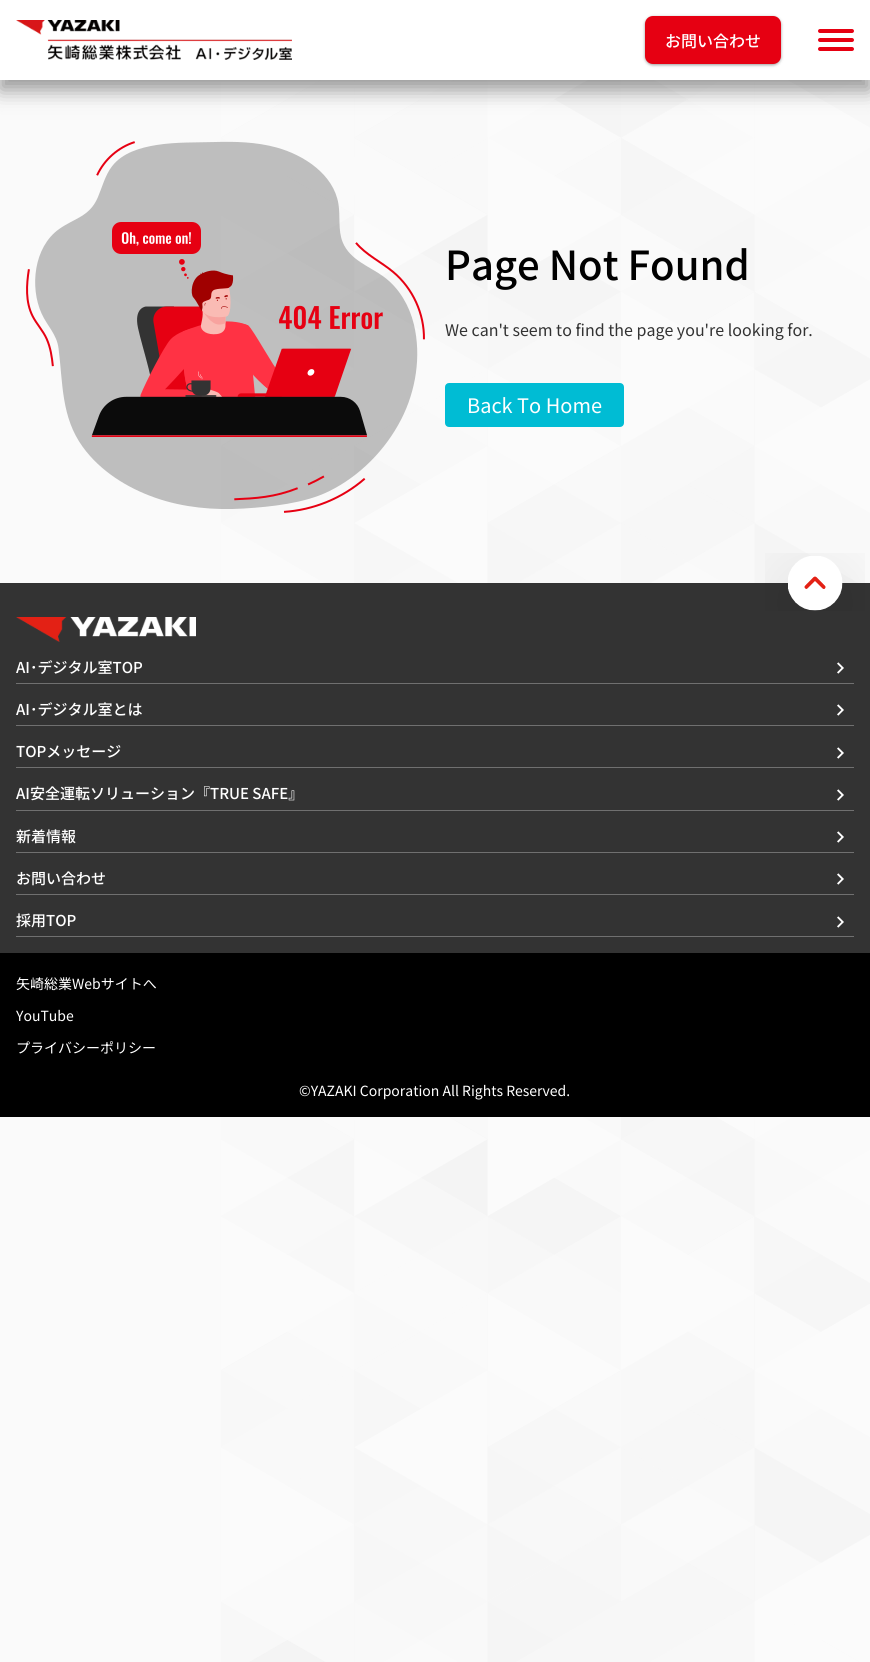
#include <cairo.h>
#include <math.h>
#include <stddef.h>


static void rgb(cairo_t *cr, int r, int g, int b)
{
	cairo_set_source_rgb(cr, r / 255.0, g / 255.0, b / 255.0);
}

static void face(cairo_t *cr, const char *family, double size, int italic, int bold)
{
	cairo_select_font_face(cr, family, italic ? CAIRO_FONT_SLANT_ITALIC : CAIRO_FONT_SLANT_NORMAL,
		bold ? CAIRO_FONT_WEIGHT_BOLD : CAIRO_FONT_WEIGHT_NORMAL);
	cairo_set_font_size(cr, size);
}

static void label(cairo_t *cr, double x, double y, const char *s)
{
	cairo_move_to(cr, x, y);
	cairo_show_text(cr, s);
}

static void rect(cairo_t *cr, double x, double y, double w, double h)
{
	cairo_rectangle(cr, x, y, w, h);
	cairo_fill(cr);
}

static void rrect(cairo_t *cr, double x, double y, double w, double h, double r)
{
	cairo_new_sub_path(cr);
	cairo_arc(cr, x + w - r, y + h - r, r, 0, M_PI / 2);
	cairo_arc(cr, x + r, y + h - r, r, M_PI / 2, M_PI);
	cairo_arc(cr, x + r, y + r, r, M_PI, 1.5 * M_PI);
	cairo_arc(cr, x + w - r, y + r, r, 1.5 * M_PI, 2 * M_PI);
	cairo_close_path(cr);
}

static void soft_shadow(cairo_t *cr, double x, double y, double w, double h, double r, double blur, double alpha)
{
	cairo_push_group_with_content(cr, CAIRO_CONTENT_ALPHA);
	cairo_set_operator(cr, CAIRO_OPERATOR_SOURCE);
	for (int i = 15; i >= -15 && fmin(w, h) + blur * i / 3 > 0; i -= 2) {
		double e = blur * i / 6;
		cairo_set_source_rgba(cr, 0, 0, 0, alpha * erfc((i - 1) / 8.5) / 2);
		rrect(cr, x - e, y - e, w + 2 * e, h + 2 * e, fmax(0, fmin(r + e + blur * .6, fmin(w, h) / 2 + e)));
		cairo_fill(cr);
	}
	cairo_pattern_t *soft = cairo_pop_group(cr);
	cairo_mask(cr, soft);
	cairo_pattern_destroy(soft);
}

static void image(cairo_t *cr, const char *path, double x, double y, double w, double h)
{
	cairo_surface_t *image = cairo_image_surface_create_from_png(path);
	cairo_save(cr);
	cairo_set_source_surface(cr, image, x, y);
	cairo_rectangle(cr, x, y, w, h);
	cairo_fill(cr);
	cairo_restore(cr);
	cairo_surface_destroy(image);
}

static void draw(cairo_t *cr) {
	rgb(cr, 250, 250, 250);
	cairo_paint(cr);
	image(cr, "image0.png", 221, 80, 649, 1582);
	rgb(cr, 0, 0, 0);
	soft_shadow(cr, 0, 10, 870, 80, 0, 10, 0.4);
	rgb(cr, 255, 255, 255);
	rect(cr, 0, 0, 870, 80);
	image(cr, "image1.png", 16, 20, 276, 40);
	rgb(cr, 0, 0, 0);
	soft_shadow(cr, 645, 17, 136, 48, 8, 1.5, 0.4);
	rgb(cr, 230, 0, 18);
	rrect(cr, 645, 16, 136, 48, 8);
	cairo_fill(cr);
	face(cr, "Noto Sans JP Medium", 16, 0, 0);
	rgb(cr, 255, 255, 255);
	label(cr, 665, 47, "お問い合わせ");
	rgb(cr, 230, 0, 18);
	rrect(cr, 818, 29, 36, 4, 2);
	cairo_fill(cr);
	rrect(cr, 818, 38, 36, 4, 2);
	cairo_fill(cr);
	rrect(cr, 818, 47, 36, 4, 2);
	cairo_fill(cr);
	image(cr, "image2.png", 26, 141, 399, 372);
	face(cr, "Noto Sans JP Medium", 40, 0, 0);
	rgb(cr, 0, 0, 0);
	label(cr, 445, 280, "Page Not Found");
	face(cr, "Noto Sans JP", 16, 0, 0);
	rgb(cr, 51, 51, 51);
	label(cr, 445, 336, "We can't seem to find the page you're looking for.");
	rgb(cr, 0, 188, 212);
	rrect(cr, 446, 384, 177, 42, 3);
	cairo_fill_preserve(cr);
	cairo_stroke(cr);
	face(cr, "Noto Sans JP", 20, 0, 0);
	rgb(cr, 255, 255, 255);
	label(cr, 467, 413, "Back To Home");
	rgb(cr, 51, 51, 51);
	rect(cr, 0, 583, 870, 370);
	image(cr, "image3.png", 765, 553, 100, 58);
	image(cr, "image4.png", 16, 617, 180, 25);
	rgb(cr, 112, 112, 112);
	rect(cr, 16, 683, 838, 1);
	face(cr, "Noto Sans JP Medium", 15, 0, 0);
	rgb(cr, 255, 255, 255);
	label(cr, 16, 673, "AI･デジタル室TOP");
	image(cr, "image5.png", 837, 662, 7, 12);
	rgb(cr, 112, 112, 112);
	rect(cr, 16, 725, 838, 1);
	rgb(cr, 255, 255, 255);
	label(cr, 16, 715, "AI･デジタル室とは");
	image(cr, "image5.png", 837, 704, 7, 12);
	rgb(cr, 112, 112, 112);
	rect(cr, 16, 767, 838, 1);
	rgb(cr, 255, 255, 255);
	label(cr, 16, 757, "TOPメッセージ");
	image(cr, "image5.png", 837, 747, 7, 12);
	rgb(cr, 112, 112, 112);
	rect(cr, 16, 810, 838, 1);
	rgb(cr, 255, 255, 255);
	label(cr, 16, 799, "AI安全運転ソリューション『TRUE SAFE』");
	image(cr, "image5.png", 837, 789, 7, 12);
	rgb(cr, 112, 112, 112);
	rect(cr, 16, 852, 838, 1);
	rgb(cr, 255, 255, 255);
	label(cr, 16, 842, "新着情報");
	image(cr, "image5.png", 837, 831, 7, 12);
	rgb(cr, 112, 112, 112);
	rect(cr, 16, 894, 838, 1);
	rgb(cr, 255, 255, 255);
	label(cr, 16, 884, "お問い合わせ");
	image(cr, "image5.png", 837, 873, 7, 12);
	rgb(cr, 112, 112, 112);
	rect(cr, 16, 936, 838, 1);
	rgb(cr, 255, 255, 255);
	label(cr, 16, 926, "採用TOP");
	image(cr, "image5.png", 837, 916, 7, 12);
	rgb(cr, 0, 0, 0);
	rect(cr, 0, 953, 870, 164);
	face(cr, "Noto Sans JP", 14, 0, 0);
	rgb(cr, 255, 255, 255);
	label(cr, 16, 989, "矢崎総業Webサイトへ");
	label(cr, 16, 1021, "YouTube");
	label(cr, 16, 1053, "プライバシーポリシー");
	label(cr, 299, 1096, "©YAZAKI Corporation All Rights Reserved.");
}

int main(void) {
	cairo_surface_t *surface = cairo_image_surface_create(CAIRO_FORMAT_RGB24, 870, 1662);
	cairo_t *cr = cairo_create(surface);
	cairo_font_options_t *options = cairo_font_options_create();
	cairo_font_options_set_hint_metrics(options, CAIRO_HINT_METRICS_OFF);
	cairo_font_options_set_hint_style(options, CAIRO_HINT_STYLE_NONE);
	cairo_set_font_options(cr, options);
	cairo_set_miter_limit(cr, 4);
	draw(cr);
	cairo_surface_write_to_png(surface, "render.png");
	cairo_font_options_destroy(options);
	cairo_destroy(cr);
	cairo_surface_destroy(surface);
	return 0;
}
